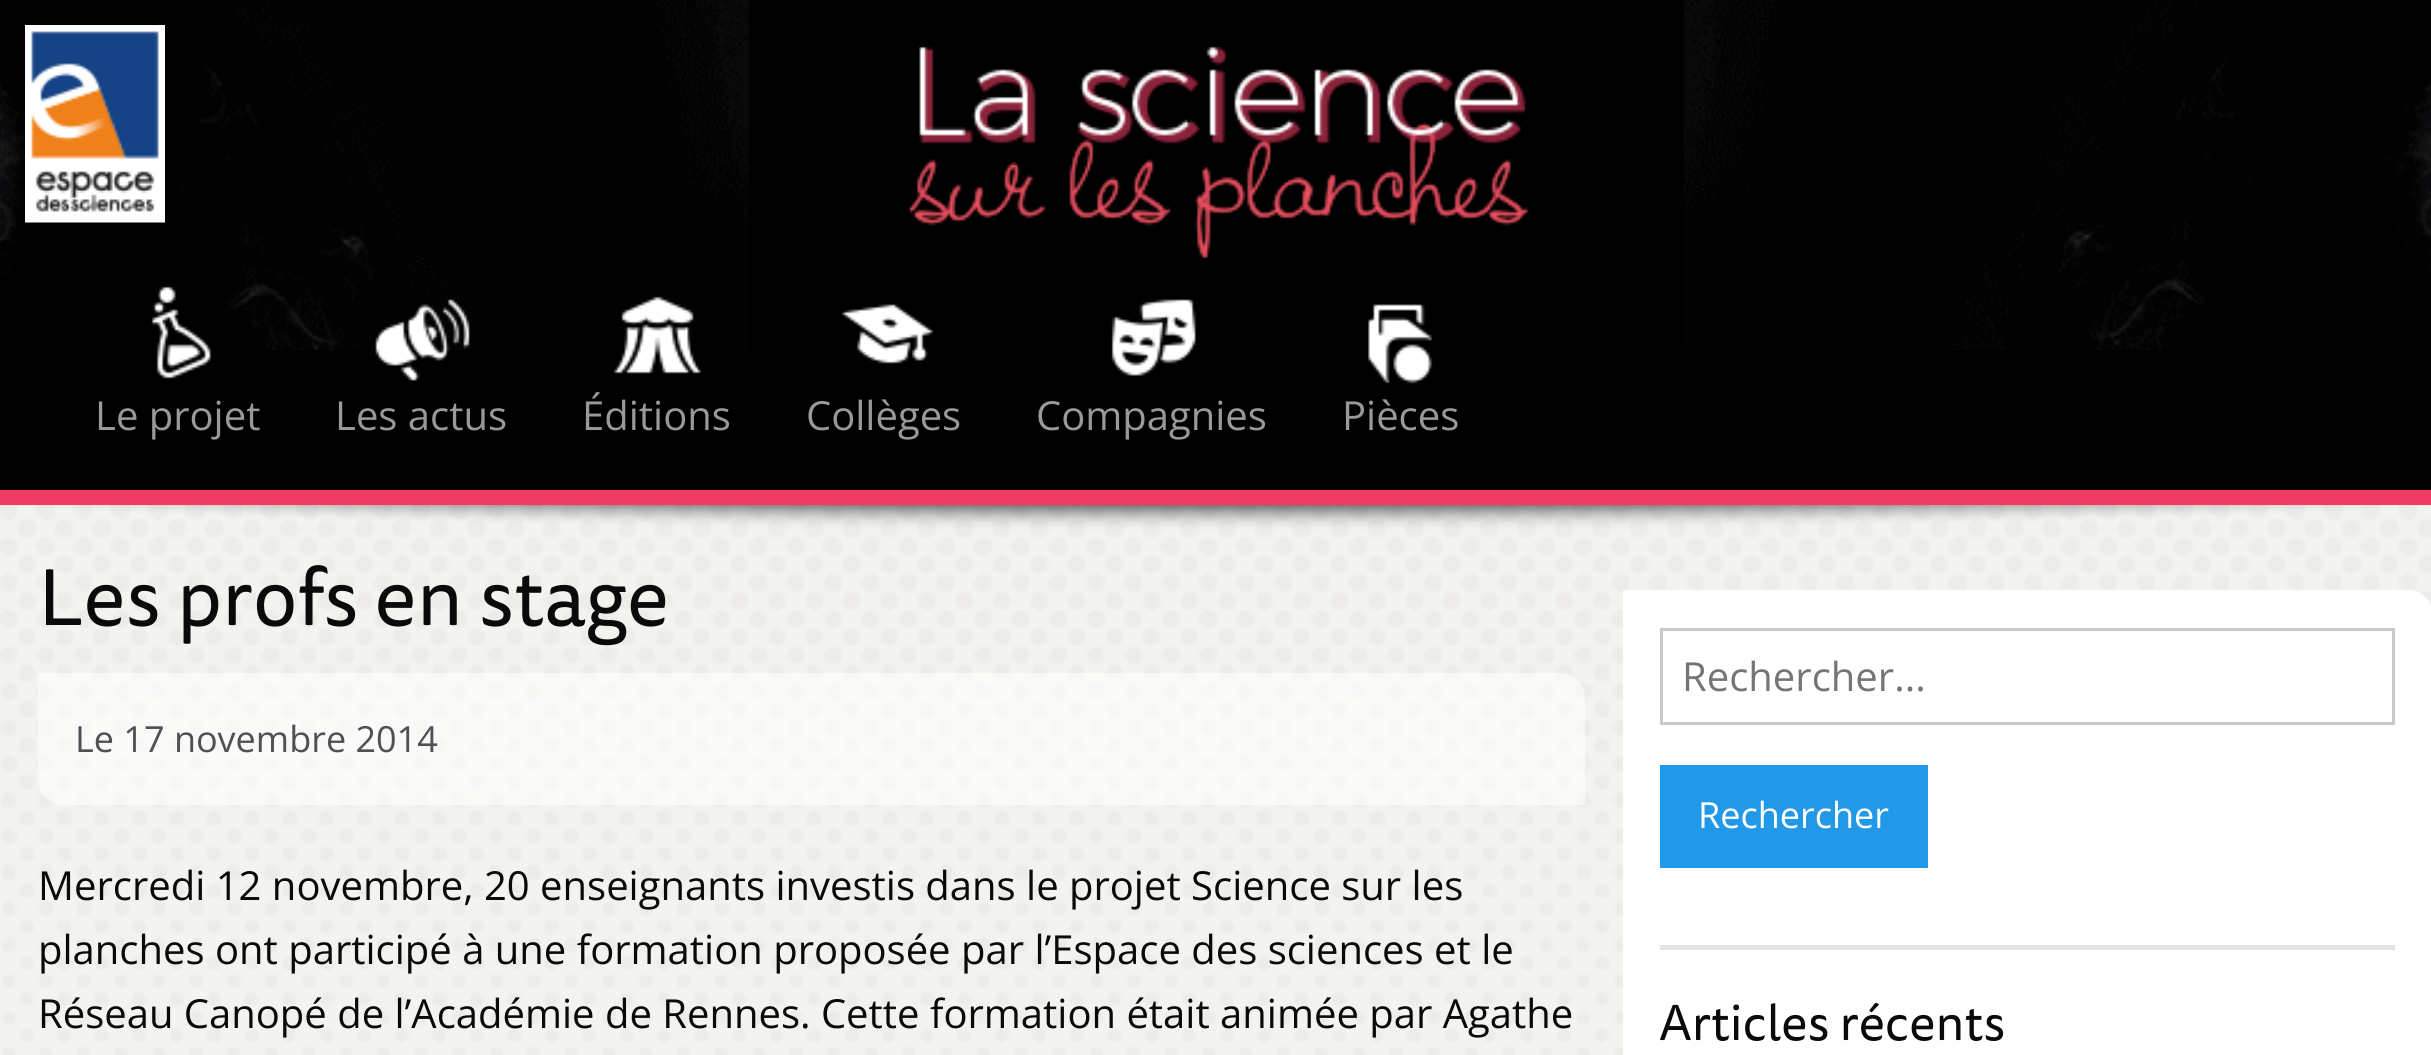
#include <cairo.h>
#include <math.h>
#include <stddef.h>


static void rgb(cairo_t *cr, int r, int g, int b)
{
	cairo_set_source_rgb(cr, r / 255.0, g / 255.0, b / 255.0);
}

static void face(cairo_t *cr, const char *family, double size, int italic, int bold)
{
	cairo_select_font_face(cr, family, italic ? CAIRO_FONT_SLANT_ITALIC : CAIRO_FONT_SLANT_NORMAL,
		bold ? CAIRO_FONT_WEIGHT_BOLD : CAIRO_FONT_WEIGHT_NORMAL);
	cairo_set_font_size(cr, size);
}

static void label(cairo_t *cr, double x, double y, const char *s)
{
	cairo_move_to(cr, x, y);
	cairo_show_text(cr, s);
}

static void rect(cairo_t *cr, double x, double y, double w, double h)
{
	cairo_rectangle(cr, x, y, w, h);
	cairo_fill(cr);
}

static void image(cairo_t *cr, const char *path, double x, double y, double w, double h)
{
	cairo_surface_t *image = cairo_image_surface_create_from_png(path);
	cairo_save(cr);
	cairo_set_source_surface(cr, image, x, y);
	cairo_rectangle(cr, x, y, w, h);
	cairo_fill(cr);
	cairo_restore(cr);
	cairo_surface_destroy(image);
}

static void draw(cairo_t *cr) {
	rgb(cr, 0, 0, 0);
	cairo_paint(cr);
	image(cr, "image0.png", 0, 0, 2431, 350);
	image(cr, "image1.png", 25, 25, 140, 198);
	image(cr, "image2.png", 909, 46, 620, 213);
	image(cr, "image3.png", 151, 286, 60, 93);
	face(cr, "Open Sans", 40, 0, 0);
	rgb(cr, 153, 153, 153);
	label(cr, 95, 430, "Le projet");
	image(cr, "image4.png", 375, 299, 95, 82);
	label(cr, 335, 430, "Les actus");
	image(cr, "image5.png", 614, 296, 87, 78);
	label(cr, 582, 430, "Éditions");
	image(cr, "image6.png", 841, 304, 93, 60);
	label(cr, 806, 430, "Collèges");
	image(cr, "image7.png", 1111, 299, 85, 77);
	label(cr, 1036, 430, "Compagnies");
	image(cr, "image8.png", 1368, 304, 65, 80);
	label(cr, 1342, 430, "Pièces");
	image(cr, "image9.png", 0, 490, 2431, 565);
	face(cr, "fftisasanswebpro", 80, 0, 0);
	rgb(cr, 10, 10, 10);
	label(cr, 38, 625, "Les profs en stage");
	cairo_set_source_rgba(cr, 1, 1, 1, 0.6);
	cairo_new_path(cr);
	cairo_move_to(cr, 38, 673);
	cairo_line_to(cr, 1560, 673);
	cairo_curve_to(cr, 1574, 673, 1585, 684, 1585, 698);
	cairo_line_to(cr, 1585, 805);
	cairo_line_to(cr, 63, 805);
	cairo_curve_to(cr, 49, 805, 38, 794, 38, 780);
	cairo_close_path(cr);
	cairo_fill(cr);
	face(cr, "Open Sans", 36, 0, 0);
	rgb(cr, 80, 80, 80);
	label(cr, 75, 752, "Le 17 novembre 2014");
	face(cr, "Open Sans", 40, 0, 0);
	rgb(cr, 10, 10, 10);
	label(cr, 38, 900, "Mercredi 12 novembre, 20 enseignants investis dans le projet Science sur les");
	label(cr, 38, 964, "planches ont participé à une formation proposée par l’Espace des sciences et le");
	label(cr, 38, 1028, "Réseau Canopé de l’Académie de Rennes. Cette formation était animée par Agathe");
	rgb(cr, 255, 255, 255);
	cairo_new_path(cr);
	cairo_move_to(cr, 1623, 590);
	cairo_line_to(cr, 2408, 590);
	cairo_curve_to(cr, 2422, 590, 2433, 601, 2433, 615);
	cairo_line_to(cr, 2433, 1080);
	cairo_line_to(cr, 1648, 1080);
	cairo_curve_to(cr, 1634, 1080, 1623, 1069, 1623, 1055);
	cairo_close_path(cr);
	cairo_fill(cr);
	rgb(cr, 228, 228, 228);
	rect(cr, 1660, 945, 735, 5);
	cairo_rectangle(cr, 1661.5, 629.5, 732, 94);
	rgb(cr, 202, 202, 202);
	cairo_set_line_width(cr, 3);
	cairo_stroke(cr);
	rgb(cr, 117, 117, 117);
	label(cr, 1682, 691, "Rechercher...");
	rgb(cr, 33, 153, 232);
	rect(cr, 1660, 765, 268, 103);
	face(cr, "Open Sans", 36, 0, 0);
	rgb(cr, 255, 255, 255);
	label(cr, 1698, 828, "Rechercher");
	face(cr, "fftisasanswebpro", 50, 0, 0);
	rgb(cr, 10, 10, 10);
	label(cr, 1659, 1040, "Articles récents");
}

int main(void) {
	cairo_surface_t *surface = cairo_image_surface_create(CAIRO_FORMAT_RGB24, 2431, 1055);
	cairo_t *cr = cairo_create(surface);
	cairo_font_options_t *options = cairo_font_options_create();
	cairo_font_options_set_hint_metrics(options, CAIRO_HINT_METRICS_OFF);
	cairo_font_options_set_hint_style(options, CAIRO_HINT_STYLE_NONE);
	cairo_set_font_options(cr, options);
	cairo_set_miter_limit(cr, 4);
	draw(cr);
	cairo_surface_write_to_png(surface, "render.png");
	cairo_font_options_destroy(options);
	cairo_destroy(cr);
	cairo_surface_destroy(surface);
	return 0;
}
